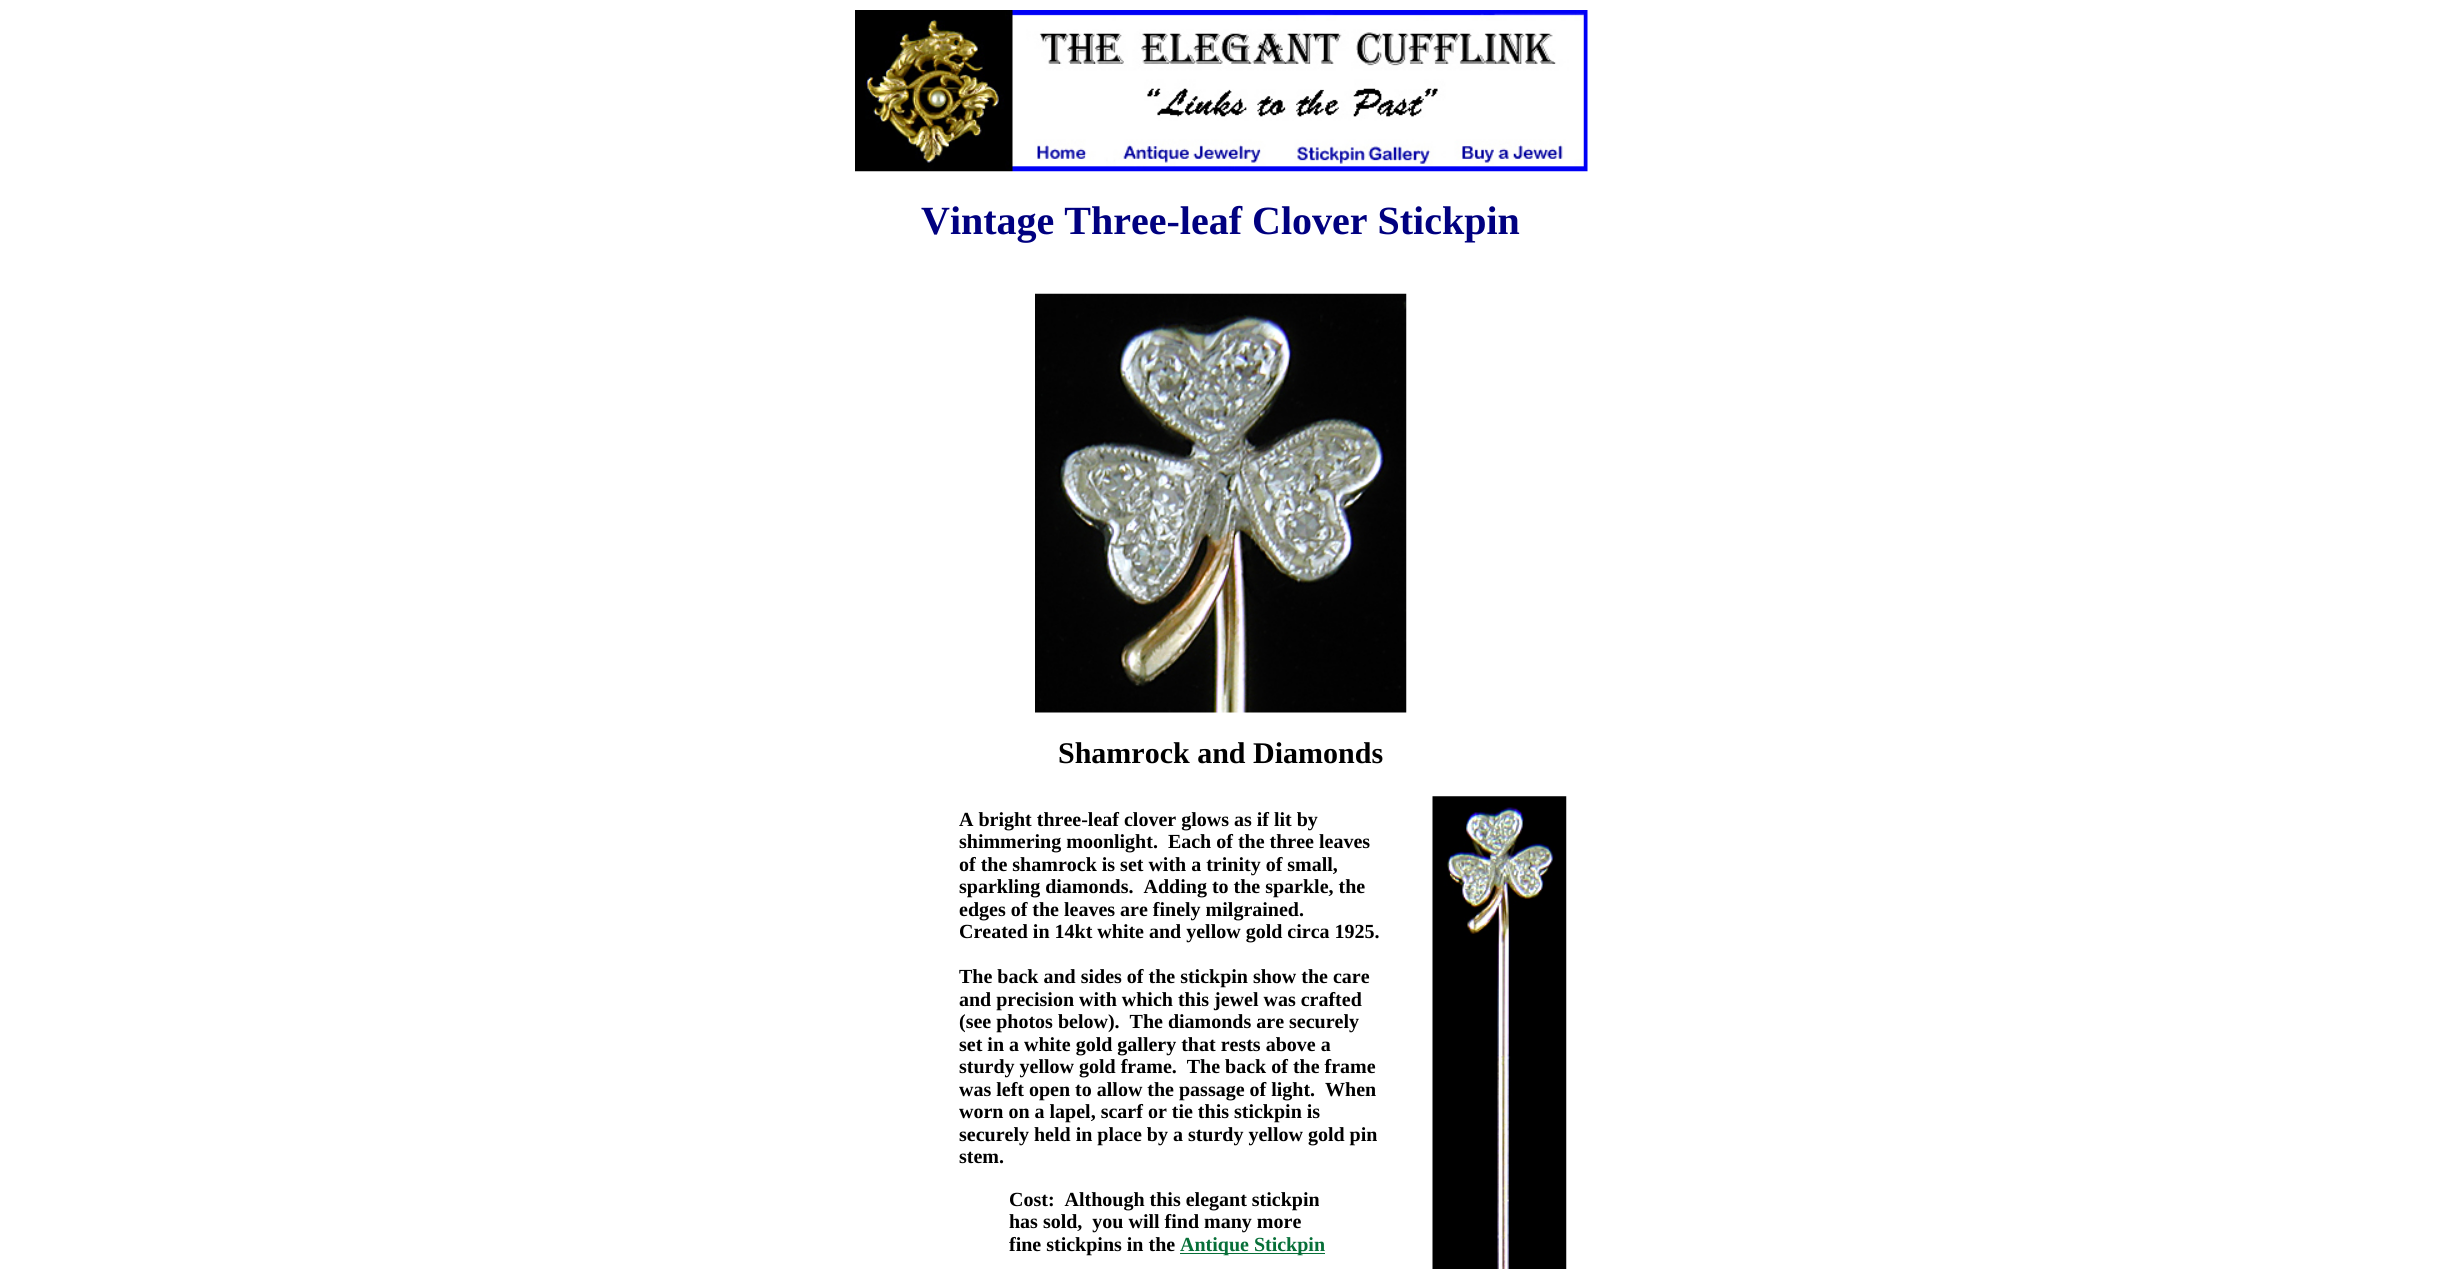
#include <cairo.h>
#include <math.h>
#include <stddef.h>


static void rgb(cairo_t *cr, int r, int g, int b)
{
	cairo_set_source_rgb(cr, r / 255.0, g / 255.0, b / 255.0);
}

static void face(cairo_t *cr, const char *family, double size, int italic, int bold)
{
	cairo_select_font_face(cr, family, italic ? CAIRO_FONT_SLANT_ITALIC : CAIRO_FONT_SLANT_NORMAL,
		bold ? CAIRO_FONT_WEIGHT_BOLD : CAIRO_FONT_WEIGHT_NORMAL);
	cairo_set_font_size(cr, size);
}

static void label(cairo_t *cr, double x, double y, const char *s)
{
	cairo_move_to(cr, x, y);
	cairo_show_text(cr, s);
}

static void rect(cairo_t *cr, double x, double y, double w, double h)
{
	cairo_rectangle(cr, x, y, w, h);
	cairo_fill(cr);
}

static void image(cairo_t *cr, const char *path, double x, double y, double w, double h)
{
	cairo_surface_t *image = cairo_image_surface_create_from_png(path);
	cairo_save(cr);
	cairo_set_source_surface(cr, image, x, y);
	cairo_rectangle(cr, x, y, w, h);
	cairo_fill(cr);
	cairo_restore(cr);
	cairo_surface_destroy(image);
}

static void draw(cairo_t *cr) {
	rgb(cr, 255, 255, 255);
	cairo_paint(cr);
	image(cr, "image0.png", 855, 10, 733, 162);
	face(cr, "Liberation Serif", 40, 0, 1);
	rgb(cr, 0, 0, 128);
	label(cr, 921, 234, "Vintage Three-leaf Clover Stickpin");
	image(cr, "image1.png", 1035, 293, 372, 420);
	face(cr, "Liberation Serif", 30, 0, 1);
	rgb(cr, 0, 0, 0);
	label(cr, 1058, 763, "Shamrock and Diamonds");
	face(cr, "Liberation Serif", 20, 0, 1);
	label(cr, 959, 826, "A bright three-leaf clover glows as if lit by");
	label(cr, 959, 848, "shimmering moonlight.  Each of the three leaves");
	label(cr, 959, 871, "of the shamrock is set with a trinity of small,");
	label(cr, 959, 893, "sparkling diamonds.  Adding to the sparkle, the");
	label(cr, 959, 916, "edges of the leaves are finely milgrained.");
	label(cr, 959, 938, "Created in 14kt white and yellow gold circa 1925.");
	label(cr, 959, 983, "The back and sides of the stickpin show the care");
	label(cr, 959, 1006, "and precision with which this jewel was crafted");
	label(cr, 959, 1028, "(see photos below).  The diamonds are securely");
	label(cr, 959, 1051, "set in a white gold gallery that rests above a");
	label(cr, 959, 1073, "sturdy yellow gold frame.  The back of the frame");
	label(cr, 959, 1096, "was left open to allow the passage of light.  When");
	label(cr, 959, 1118, "worn on a lapel, scarf or tie this stickpin is");
	label(cr, 959, 1141, "securely held in place by a sturdy yellow gold pin");
	label(cr, 959, 1163, "stem.");
	label(cr, 1009, 1206, "Cost:  Although this elegant stickpin");
	label(cr, 1009, 1228, "has sold,  you will find many more");
	label(cr, 1009, 1251, "fine stickpins in the");
	rgb(cr, 7, 111, 56);
	rect(cr, 1180, 1253, 145, 1);
	label(cr, 1180, 1251, "Antique Stickpin");
	image(cr, "image2.png", 1432, 796, 135, 473);
}

int main(void) {
	cairo_surface_t *surface = cairo_image_surface_create(CAIRO_FORMAT_RGB24, 2441, 1269);
	cairo_t *cr = cairo_create(surface);
	cairo_font_options_t *options = cairo_font_options_create();
	cairo_font_options_set_hint_metrics(options, CAIRO_HINT_METRICS_OFF);
	cairo_font_options_set_hint_style(options, CAIRO_HINT_STYLE_NONE);
	cairo_set_font_options(cr, options);
	cairo_set_miter_limit(cr, 4);
	draw(cr);
	cairo_surface_write_to_png(surface, "render.png");
	cairo_font_options_destroy(options);
	cairo_destroy(cr);
	cairo_surface_destroy(surface);
	return 0;
}
